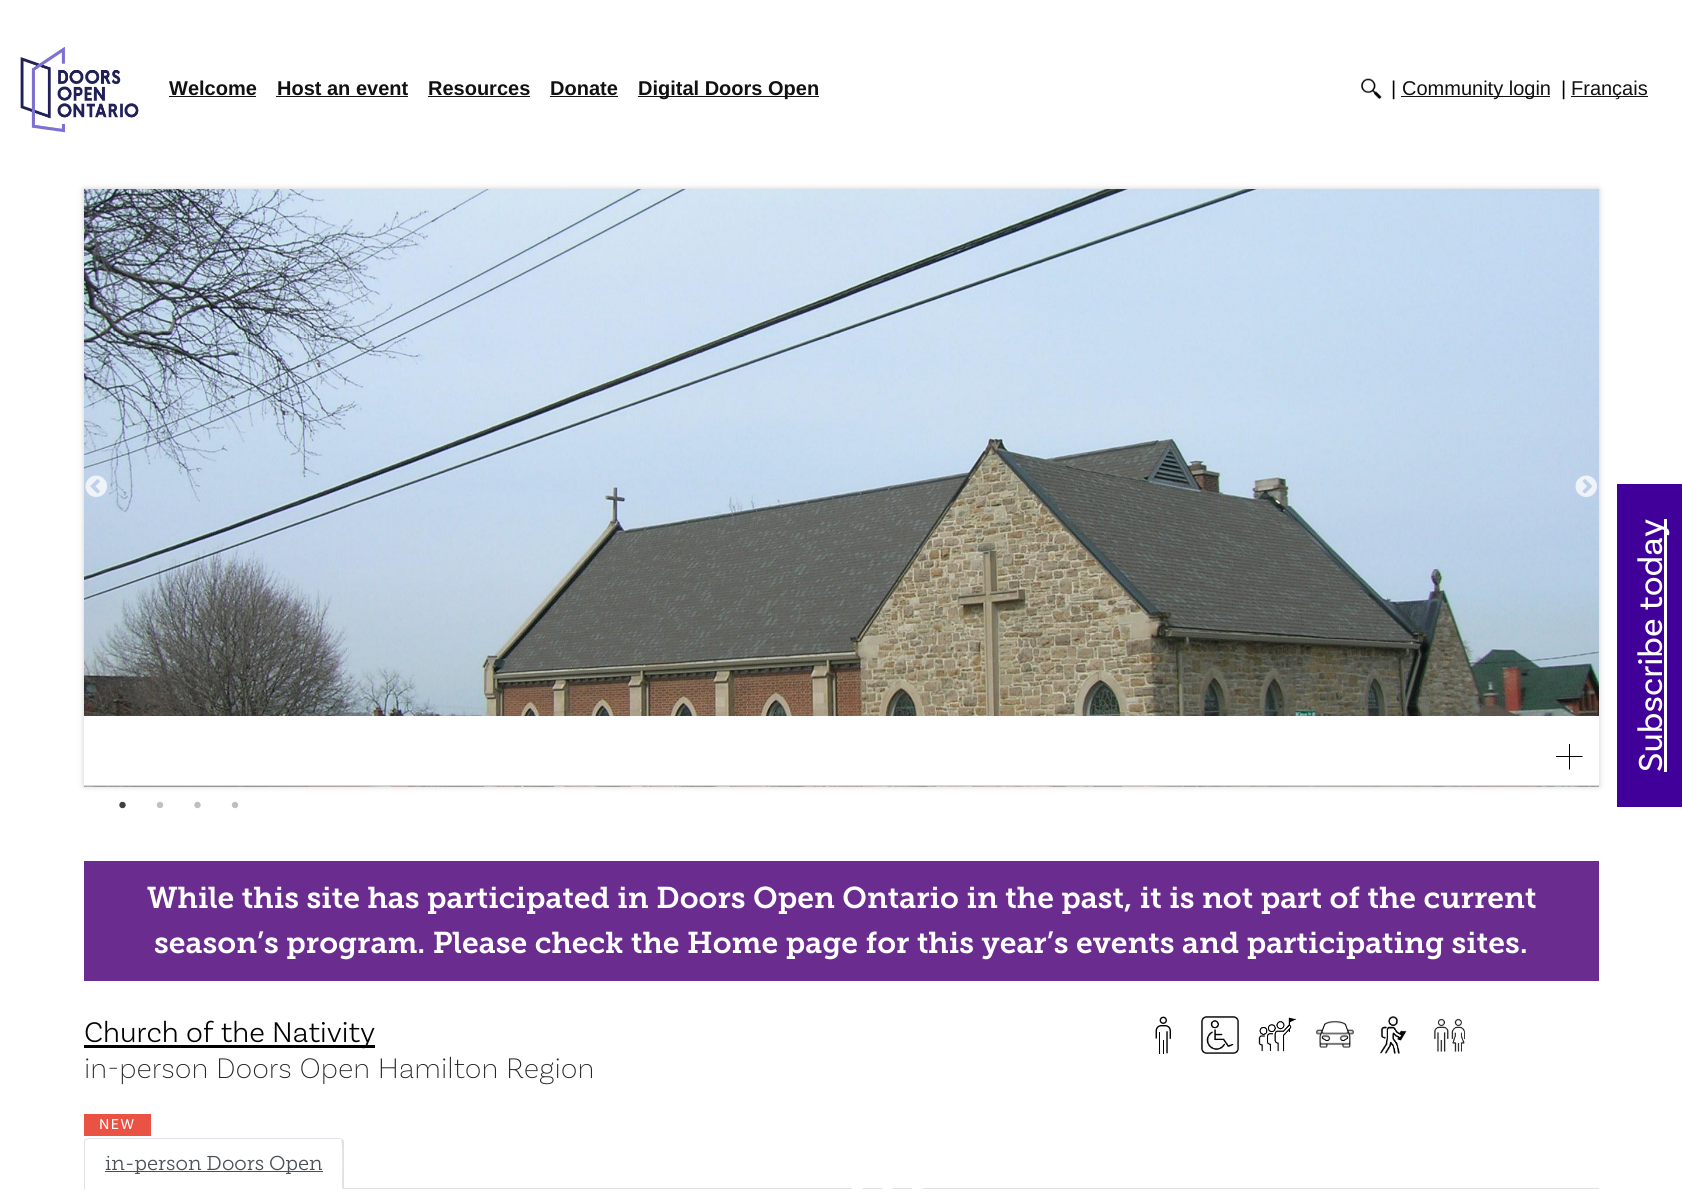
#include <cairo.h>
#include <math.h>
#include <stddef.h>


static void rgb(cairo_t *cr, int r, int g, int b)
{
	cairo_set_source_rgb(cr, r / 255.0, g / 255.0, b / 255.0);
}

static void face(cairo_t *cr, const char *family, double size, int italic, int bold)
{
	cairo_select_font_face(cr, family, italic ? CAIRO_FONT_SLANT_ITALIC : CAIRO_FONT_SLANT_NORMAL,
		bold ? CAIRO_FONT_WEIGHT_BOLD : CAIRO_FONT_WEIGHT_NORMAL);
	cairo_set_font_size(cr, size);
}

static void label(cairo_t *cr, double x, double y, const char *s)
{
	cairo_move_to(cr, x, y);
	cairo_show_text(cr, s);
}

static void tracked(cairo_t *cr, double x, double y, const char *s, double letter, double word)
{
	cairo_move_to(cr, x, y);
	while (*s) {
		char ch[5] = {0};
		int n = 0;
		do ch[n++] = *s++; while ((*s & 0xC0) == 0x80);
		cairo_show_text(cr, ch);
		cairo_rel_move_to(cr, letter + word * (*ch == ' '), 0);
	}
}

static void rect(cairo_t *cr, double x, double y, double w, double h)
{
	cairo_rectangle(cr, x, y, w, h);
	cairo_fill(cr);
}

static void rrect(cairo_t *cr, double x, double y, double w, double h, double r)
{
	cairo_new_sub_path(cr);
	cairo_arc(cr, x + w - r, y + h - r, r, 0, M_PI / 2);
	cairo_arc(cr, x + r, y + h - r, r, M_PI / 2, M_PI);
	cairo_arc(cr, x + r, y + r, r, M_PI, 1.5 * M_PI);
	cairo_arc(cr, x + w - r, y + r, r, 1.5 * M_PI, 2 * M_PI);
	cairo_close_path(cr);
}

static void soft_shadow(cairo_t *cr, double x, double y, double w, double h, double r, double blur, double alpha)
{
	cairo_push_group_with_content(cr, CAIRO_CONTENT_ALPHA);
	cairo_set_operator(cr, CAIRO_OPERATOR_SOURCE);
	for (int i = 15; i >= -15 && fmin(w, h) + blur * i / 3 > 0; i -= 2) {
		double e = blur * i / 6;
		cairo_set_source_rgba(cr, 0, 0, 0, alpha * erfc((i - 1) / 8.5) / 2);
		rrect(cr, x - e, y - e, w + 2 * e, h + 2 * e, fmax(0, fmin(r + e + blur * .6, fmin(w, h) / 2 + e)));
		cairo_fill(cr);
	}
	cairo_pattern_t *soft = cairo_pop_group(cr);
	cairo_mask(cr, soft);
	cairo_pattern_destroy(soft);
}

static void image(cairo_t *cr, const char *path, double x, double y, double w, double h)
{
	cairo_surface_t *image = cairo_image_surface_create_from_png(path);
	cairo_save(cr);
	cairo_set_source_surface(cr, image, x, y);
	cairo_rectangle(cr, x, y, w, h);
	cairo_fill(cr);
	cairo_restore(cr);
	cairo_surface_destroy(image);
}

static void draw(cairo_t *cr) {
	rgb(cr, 255, 255, 255);
	cairo_paint(cr);
	image(cr, "image0.png", 20, 47, 119, 86);
	face(cr, "Liberation Sans", 20, 0, 1);
	rgb(cr, 17, 17, 17);
	label(cr, 169, 95, "Welcome");
	rect(cr, 169, 96, 87, 1);
	label(cr, 277, 95, "Host an event");
	rect(cr, 276, 96, 132, 1);
	label(cr, 428, 95, "Resources");
	rect(cr, 428, 96, 102, 1);
	label(cr, 550, 95, "Donate");
	rect(cr, 550, 96, 68, 1);
	rect(cr, 638, 96, 181, 1);
	label(cr, 638, 95, "Digital Doors Open");
	image(cr, "image1.png", 1361, 78, 21, 21);
	face(cr, "Liberation Sans", 20, 0, 0);
	rgb(cr, 0, 0, 0);
	label(cr, 1391, 95, "|");
	rgb(cr, 17, 17, 17);
	rect(cr, 1401, 96, 149, 1);
	label(cr, 1402, 95, "Community login");
	rgb(cr, 0, 0, 0);
	label(cr, 1561, 95, "|");
	rgb(cr, 17, 17, 17);
	rect(cr, 1571, 96, 77, 1);
	label(cr, 1571, 95, "Français");
	rgb(cr, 65, 0, 153);
	rect(cr, 1617, 484, 65, 323);
	rgb(cr, 255, 255, 255);
	rect(cr, 1664, 519, 3, 253);
	face(cr, "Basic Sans", 35, 0, 0);
	cairo_save(cr);
	cairo_translate(cr, 1662, 772);
	cairo_rotate(cr, -90 * M_PI / 180);
	label(cr, 0, 0, "Subscribe today");
	cairo_restore(cr);
	rgb(cr, 204, 204, 204);
	soft_shadow(cr, 84, 189, 1515, 597, 0, 3, 1);
	image(cr, "image2.png", 84, 189, 1515, 598);
	rgb(cr, 255, 255, 255);
	rect(cr, 84, 716, 1515, 69);
	rgb(cr, 214, 214, 214);
	rect(cr, 84, 785, 1515, 1);
	rgb(cr, 0, 0, 0);
	cairo_new_path(cr);
	cairo_move_to(cr, 1569, 744);
	cairo_line_to(cr, 1569, 770);
	cairo_line_to(cr, 1570, 769);
	cairo_line_to(cr, 1570, 744);
	cairo_close_path(cr);
	cairo_fill(cr);
	cairo_new_path(cr);
	cairo_move_to(cr, 1556, 756);
	cairo_line_to(cr, 1556, 757);
	cairo_line_to(cr, 1582, 757);
	cairo_line_to(cr, 1583, 756);
	cairo_close_path(cr);
	cairo_fill(cr);
	image(cr, "image3.png", 85, 475, 22, 22);
	image(cr, "image4.png", 1575, 475, 22, 22);
	image(cr, "image5.png", 119, 801, 7, 8);
	image(cr, "image6.png", 156, 801, 8, 8);
	image(cr, "image7.png", 194, 801, 7, 8);
	image(cr, "image6.png", 231, 801, 8, 8);
	rgb(cr, 107, 44, 144);
	rect(cr, 84, 861, 1515, 120);
	face(cr, "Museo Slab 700 SemiBold", 30, 0, 0);
	rgb(cr, 255, 255, 255);
	label(cr, 147, 908, "While this site has participated in Doors Open Ontario in the past, it is not part of the current");
	label(cr, 154, 953, "season’s program. Please check the Home page for this year’s events and participating sites.");
	rgb(cr, 0, 0, 0);
	rect(cr, 84, 1045, 291, 3);
	face(cr, "Basic Sans Light", 30, 0, 0);
	label(cr, 84, 1042, "Church of the Nativity");
	face(cr, "Basic Sans ExtraLight", 30, 0, 0);
	rgb(cr, 34, 34, 34);
	label(cr, 84, 1078, "in-person Doors Open Hamilton Region");
	image(cr, "image8.png", 1155, 1016, 16, 38);
	image(cr, "image9.png", 1201, 1016, 38, 38);
	image(cr, "image10.png", 1258, 1017, 39, 35);
	image(cr, "image11.png", 1316, 1021, 38, 27);
	image(cr, "image12.png", 1380, 1016, 27, 38);
	image(cr, "image13.png", 1434, 1018, 31, 34);
	rgb(cr, 234, 82, 67);
	rect(cr, 84, 1114, 67, 22);
	face(cr, "Basic Sans", 15, 0, 0);
	rgb(cr, 255, 255, 255);
	tracked(cr, 99, 1129, "NEW", 1.5, 0);
	rgb(cr, 222, 226, 230);
	rect(cr, 344, 1188, 1255, 1);
	cairo_new_path(cr);
	cairo_move_to(cr, 89, 1138);
	cairo_line_to(cr, 85, 1139);
	cairo_line_to(cr, 86, 1140);
	cairo_line_to(cr, 89, 1139);
	cairo_line_to(cr, 339, 1139);
	cairo_curve_to(cr, 340, 1139, 341, 1139, 341, 1140);
	cairo_line_to(cr, 342, 1139);
	cairo_line_to(cr, 339, 1138);
	cairo_close_path(cr);
	cairo_fill(cr);
	cairo_new_path(cr);
	cairo_move_to(cr, 342, 1139);
	cairo_line_to(cr, 344, 1141);
	cairo_line_to(cr, 344, 1190);
	cairo_line_to(cr, 342, 1188);
	cairo_curve_to(cr, 342, 1182, 343, 1142, 341, 1140);
	cairo_close_path(cr);
	cairo_fill(cr);
	rgb(cr, 255, 255, 255);
	cairo_new_path(cr);
	cairo_move_to(cr, 344, 1190);
	cairo_line_to(cr, 342, 1188);
	cairo_line_to(cr, 342, 1189);
	cairo_line_to(cr, 85, 1189);
	cairo_line_to(cr, 84, 1190);
	cairo_close_path(cr);
	cairo_fill(cr);
	rgb(cr, 222, 226, 230);
	cairo_new_path(cr);
	cairo_move_to(cr, 85, 1139);
	cairo_line_to(cr, 84, 1141);
	cairo_line_to(cr, 84, 1190);
	cairo_line_to(cr, 85, 1189);
	cairo_line_to(cr, 85, 1141);
	cairo_line_to(cr, 86, 1140);
	cairo_close_path(cr);
	cairo_fill(cr);
	rgb(cr, 73, 80, 87);
	rect(cr, 105, 1171, 218, 1);
	face(cr, "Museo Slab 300 Light", 20, 0, 0);
	label(cr, 105, 1170, "in-person Doors Open");
	rgb(cr, 255, 255, 255);
	rrect(cr, 851, 1179, 13, 12, 6);
	cairo_fill(cr);
	rrect(cr, 881, 1179, 13, 12, 6);
	cairo_fill(cr);
	rrect(cr, 911, 1179, 13, 12, 6);
	cairo_fill(cr);
}

int main(void) {
	cairo_surface_t *surface = cairo_image_surface_create(CAIRO_FORMAT_RGB24, 1682, 1194);
	cairo_t *cr = cairo_create(surface);
	cairo_font_options_t *options = cairo_font_options_create();
	cairo_font_options_set_hint_metrics(options, CAIRO_HINT_METRICS_OFF);
	cairo_font_options_set_hint_style(options, CAIRO_HINT_STYLE_NONE);
	cairo_set_font_options(cr, options);
	cairo_set_miter_limit(cr, 4);
	draw(cr);
	cairo_surface_write_to_png(surface, "render.png");
	cairo_font_options_destroy(options);
	cairo_destroy(cr);
	cairo_surface_destroy(surface);
	return 0;
}
